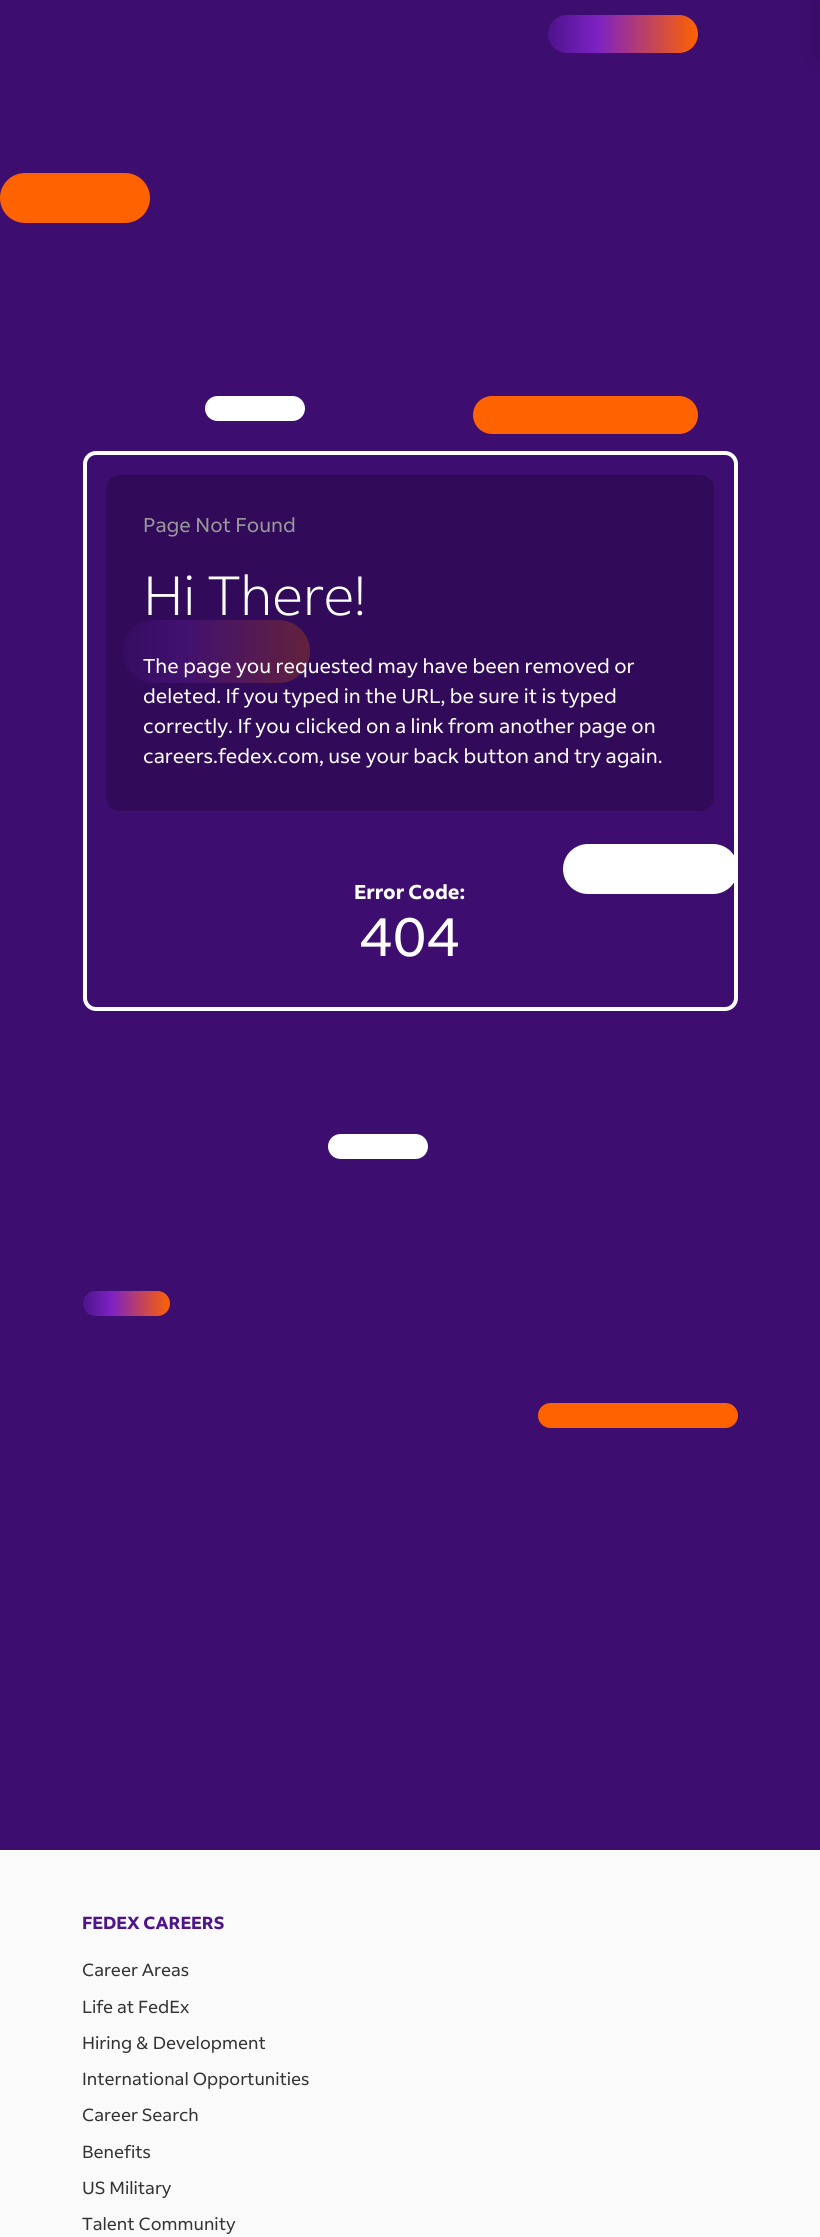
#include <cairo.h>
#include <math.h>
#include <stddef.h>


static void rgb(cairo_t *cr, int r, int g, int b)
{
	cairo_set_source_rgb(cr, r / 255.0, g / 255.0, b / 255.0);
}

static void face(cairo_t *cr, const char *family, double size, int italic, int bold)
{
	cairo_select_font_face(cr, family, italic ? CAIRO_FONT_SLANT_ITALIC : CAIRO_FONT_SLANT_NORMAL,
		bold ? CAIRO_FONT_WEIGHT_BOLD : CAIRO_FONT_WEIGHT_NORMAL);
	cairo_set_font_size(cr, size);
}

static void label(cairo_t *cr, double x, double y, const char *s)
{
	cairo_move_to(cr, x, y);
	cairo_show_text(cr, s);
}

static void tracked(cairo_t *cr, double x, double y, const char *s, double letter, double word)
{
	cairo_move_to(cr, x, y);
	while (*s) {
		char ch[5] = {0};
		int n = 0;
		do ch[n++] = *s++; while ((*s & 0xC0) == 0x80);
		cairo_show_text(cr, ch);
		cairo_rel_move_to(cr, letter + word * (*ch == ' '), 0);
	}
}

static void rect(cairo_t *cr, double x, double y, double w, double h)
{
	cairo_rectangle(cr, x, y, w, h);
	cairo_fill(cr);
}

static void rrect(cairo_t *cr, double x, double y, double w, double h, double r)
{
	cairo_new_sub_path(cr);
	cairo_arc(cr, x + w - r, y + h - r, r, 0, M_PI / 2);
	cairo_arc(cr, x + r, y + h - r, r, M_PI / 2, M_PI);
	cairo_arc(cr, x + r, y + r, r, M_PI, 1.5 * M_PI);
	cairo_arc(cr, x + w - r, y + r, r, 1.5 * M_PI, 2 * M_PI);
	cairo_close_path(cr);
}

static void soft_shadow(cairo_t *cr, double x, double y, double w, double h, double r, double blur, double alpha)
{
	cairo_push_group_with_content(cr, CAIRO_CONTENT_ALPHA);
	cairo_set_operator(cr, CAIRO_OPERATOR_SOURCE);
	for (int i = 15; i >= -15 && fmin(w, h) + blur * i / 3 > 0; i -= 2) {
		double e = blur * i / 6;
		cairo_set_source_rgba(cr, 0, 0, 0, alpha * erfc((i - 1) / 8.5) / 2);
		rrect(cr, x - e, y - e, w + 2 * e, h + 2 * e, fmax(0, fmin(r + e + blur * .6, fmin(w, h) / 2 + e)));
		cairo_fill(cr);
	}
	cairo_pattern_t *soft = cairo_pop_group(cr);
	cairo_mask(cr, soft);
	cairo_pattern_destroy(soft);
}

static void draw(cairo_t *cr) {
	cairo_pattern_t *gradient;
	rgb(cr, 62, 13, 112);
	cairo_paint(cr);
	rgb(cr, 0, 0, 0);
	soft_shadow(cr, 820, 4, 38, 51, 0, 12.5, 0.2);
	gradient = cairo_pattern_create_linear(548, 34, 698, 34);
	cairo_pattern_add_color_stop_rgba(gradient, 0, 0.302, 0.078, 0.549, 1);
	cairo_pattern_add_color_stop_rgba(gradient, 0.33, 0.49, 0.133, 0.765, 1);
	cairo_pattern_add_color_stop_rgba(gradient, 1, 1, 0.384, 0, 1);
	cairo_set_source(cr, gradient);
	cairo_pattern_destroy(gradient);
	rrect(cr, 548, 15, 150, 38, 19);
	cairo_fill(cr);
	gradient = cairo_pattern_create_linear(123, 651, 310, 651);
	cairo_pattern_add_color_stop_rgba(gradient, 0, 0.302, 0.078, 0.549, 1);
	cairo_pattern_add_color_stop_rgba(gradient, 0.33, 0.49, 0.133, 0.765, 1);
	cairo_pattern_add_color_stop_rgba(gradient, 1, 1, 0.384, 0, 1);
	cairo_set_source(cr, gradient);
	cairo_pattern_destroy(gradient);
	rrect(cr, 123, 620, 187, 63, 31.5);
	cairo_fill(cr);
	gradient = cairo_pattern_create_linear(83, 1304, 170, 1304);
	cairo_pattern_add_color_stop_rgba(gradient, 0, 0.302, 0.078, 0.549, 1);
	cairo_pattern_add_color_stop_rgba(gradient, 0.33, 0.49, 0.133, 0.765, 1);
	cairo_pattern_add_color_stop_rgba(gradient, 1, 1, 0.384, 0, 1);
	cairo_set_source(cr, gradient);
	cairo_pattern_destroy(gradient);
	rrect(cr, 83, 1291, 87, 25, 12.5);
	cairo_fill(cr);
	rgb(cr, 255, 98, 0);
	rrect(cr, 0, 173, 150, 50, 25);
	cairo_fill(cr);
	rrect(cr, 473, 396, 225, 38, 19);
	cairo_fill(cr);
	rrect(cr, 538, 1403, 200, 25, 12.5);
	cairo_fill(cr);
	rgb(cr, 255, 255, 255);
	rrect(cr, 205, 396, 100, 25, 12.5);
	cairo_fill(cr);
	rrect(cr, 563, 844, 175, 50, 25);
	cairo_fill(cr);
	rrect(cr, 328, 1134, 100, 25, 12.5);
	cairo_fill(cr);
	rrect(cr, 85, 453, 651, 556, 11);
	cairo_set_line_width(cr, 4);
	cairo_stroke(cr);
	cairo_set_source_rgba(cr, 0.176, 0.043, 0.325, 0.74);
	rrect(cr, 106, 475, 608, 336, 13);
	cairo_fill(cr);
	face(cr, "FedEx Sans", 20, 0, 0);
	rgb(cr, 153, 153, 153);
	label(cr, 143, 532, "Page Not Found");
	face(cr, "FedEx Sans Light", 55, 0, 0);
	rgb(cr, 255, 255, 255);
	tracked(cr, 143, 615, "Hi There!", -0.5, 0);
	face(cr, "FedEx Sans", 20, 0, 0);
	label(cr, 143, 673, "The page you requested may have been removed or");
	label(cr, 143, 703, "deleted. If you typed in the URL, be sure it is typed");
	label(cr, 143, 733, "correctly. If you clicked on a link from another page on");
	label(cr, 143, 763, "careers.fedex.com, use your back button and try again.");
	face(cr, "FedEx Sans", 20, 0, 1);
	label(cr, 354, 899, "Error Code:");
	face(cr, "FedEx Sans", 55, 0, 0);
	label(cr, 359, 956, "404");
	rgb(cr, 250, 250, 250);
	rect(cr, 0, 1850, 820, 387);
	face(cr, "FedEx Sans", 17.5, 0, 1);
	rgb(cr, 77, 20, 140);
	label(cr, 82, 1929, "FEDEX CAREERS");
	face(cr, "FedEx Sans", 17.5, 0, 0);
	rgb(cr, 51, 51, 51);
	label(cr, 82, 1976, "Career Areas");
	label(cr, 82, 2013, "Life at FedEx");
	label(cr, 82, 2049, "Hiring & Development");
	label(cr, 82, 2085, "International Opportunities");
	label(cr, 82, 2121, "Career Search");
	label(cr, 82, 2158, "Benefits");
	label(cr, 82, 2194, "US Military");
	label(cr, 82, 2230, "Talent Community");
}

int main(void) {
	cairo_surface_t *surface = cairo_image_surface_create(CAIRO_FORMAT_RGB24, 820, 2237);
	cairo_t *cr = cairo_create(surface);
	cairo_font_options_t *options = cairo_font_options_create();
	cairo_font_options_set_hint_metrics(options, CAIRO_HINT_METRICS_OFF);
	cairo_font_options_set_hint_style(options, CAIRO_HINT_STYLE_NONE);
	cairo_set_font_options(cr, options);
	cairo_set_miter_limit(cr, 4);
	draw(cr);
	cairo_surface_write_to_png(surface, "render.png");
	cairo_font_options_destroy(options);
	cairo_destroy(cr);
	cairo_surface_destroy(surface);
	return 0;
}
